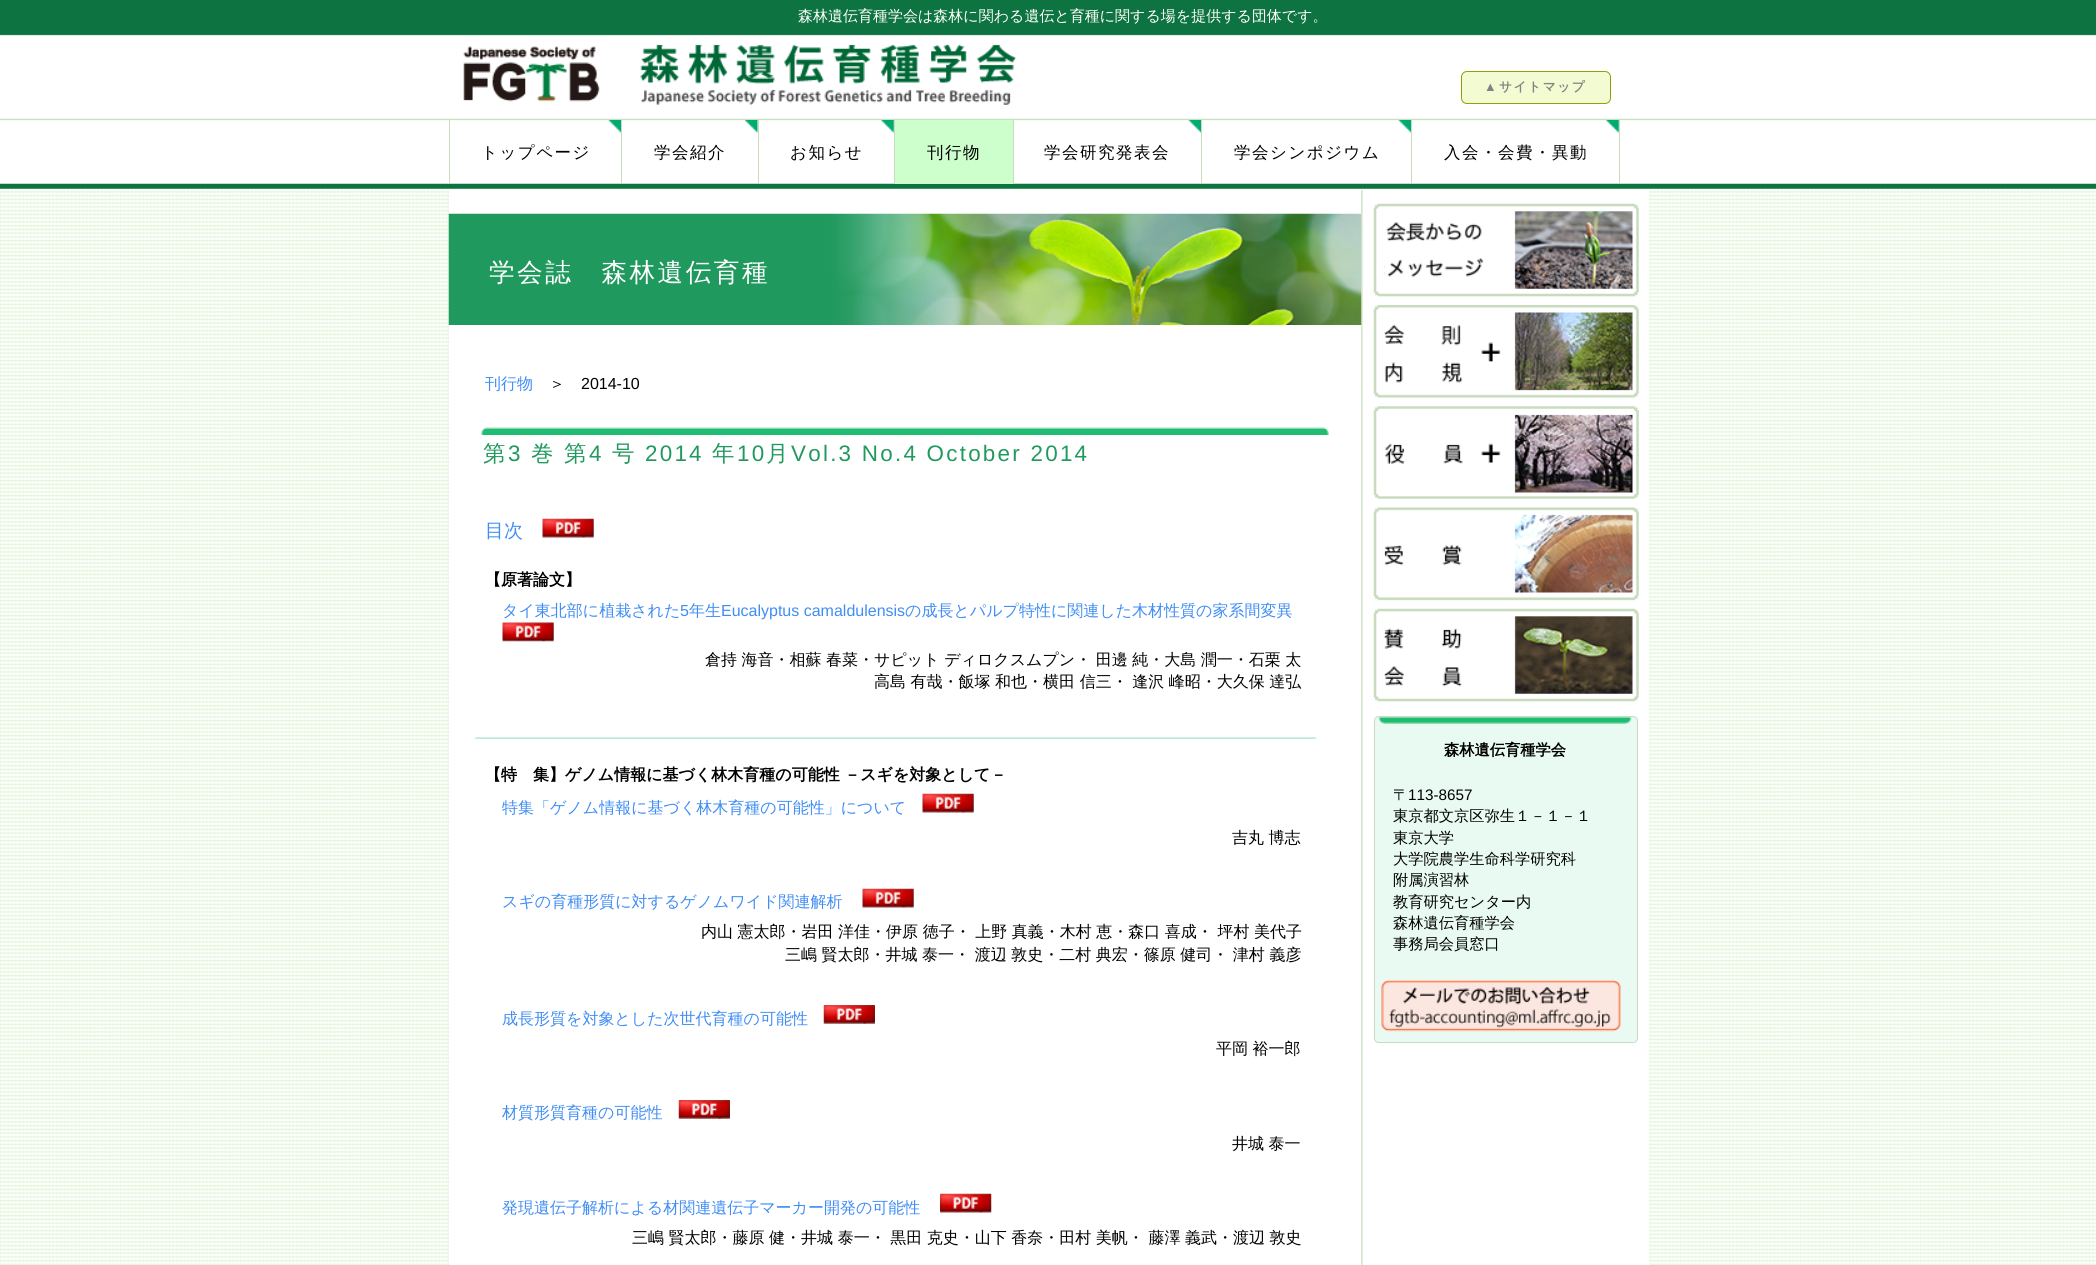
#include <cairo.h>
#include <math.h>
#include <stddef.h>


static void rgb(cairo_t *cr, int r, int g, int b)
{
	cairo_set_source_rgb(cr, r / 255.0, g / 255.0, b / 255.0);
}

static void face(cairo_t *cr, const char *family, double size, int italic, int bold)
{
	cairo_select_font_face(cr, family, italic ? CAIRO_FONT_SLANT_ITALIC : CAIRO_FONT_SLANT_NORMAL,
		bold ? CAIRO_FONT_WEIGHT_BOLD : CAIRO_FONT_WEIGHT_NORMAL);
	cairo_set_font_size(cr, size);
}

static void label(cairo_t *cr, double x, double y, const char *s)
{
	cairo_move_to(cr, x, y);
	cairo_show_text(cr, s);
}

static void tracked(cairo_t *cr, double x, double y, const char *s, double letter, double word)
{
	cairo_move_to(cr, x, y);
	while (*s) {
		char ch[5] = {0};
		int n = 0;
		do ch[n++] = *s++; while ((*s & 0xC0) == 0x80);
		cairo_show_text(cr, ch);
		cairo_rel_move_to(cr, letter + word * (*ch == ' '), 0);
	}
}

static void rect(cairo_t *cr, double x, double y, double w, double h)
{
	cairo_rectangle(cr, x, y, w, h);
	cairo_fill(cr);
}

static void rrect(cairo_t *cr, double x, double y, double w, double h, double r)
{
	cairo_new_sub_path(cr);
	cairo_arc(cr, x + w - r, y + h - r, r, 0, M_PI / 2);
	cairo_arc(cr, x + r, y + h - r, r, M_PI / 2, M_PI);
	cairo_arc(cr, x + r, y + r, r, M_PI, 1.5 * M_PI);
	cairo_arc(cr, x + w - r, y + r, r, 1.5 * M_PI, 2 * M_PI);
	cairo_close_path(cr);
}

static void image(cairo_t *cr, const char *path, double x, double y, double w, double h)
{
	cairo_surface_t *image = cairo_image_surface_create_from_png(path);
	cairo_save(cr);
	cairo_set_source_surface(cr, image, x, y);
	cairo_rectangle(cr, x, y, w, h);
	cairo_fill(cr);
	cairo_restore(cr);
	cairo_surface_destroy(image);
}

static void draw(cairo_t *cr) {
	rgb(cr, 255, 255, 255);
	cairo_paint(cr);
	image(cr, "image0.png", 0, 188, 2096, 1077);
	image(cr, "image1.png", 0, 0, 2096, 189);
	face(cr, "WenQuanYi Zen Hei Medium", 15, 0, 0);
	rgb(cr, 255, 255, 255);
	label(cr, 798, 21, "森林遺伝育種学会は森林に関わる遺伝と育種に関する場を提供する団体です。");
	image(cr, "image2.png", 463, 43, 554, 62);
	rgb(cr, 243, 251, 210);
	rrect(cr, 1461.5, 71.5, 149, 32, 5.5);
	cairo_fill_preserve(cr);
	rgb(cr, 147, 160, 6);
	cairo_set_line_width(cr, 1);
	cairo_stroke(cr);
	face(cr, "Liberation Sans", 12.75, 0, 1);
	rgb(cr, 130, 130, 130);
	tracked(cr, 1484, 91, "▲", 1.5, 0);
	face(cr, "WenQuanYi Zen Hei", 12.75, 0, 1);
	tracked(cr, 1499, 91, "サイトマップ", 1.5, 0);
	rgb(cr, 255, 255, 255);
	rect(cr, 1363, 190, 286, 1075);
	image(cr, "image3.png", 448, 190, 915, 1075);
	image(cr, "image4.png", 608, 120, 13, 13);
	rgb(cr, 200, 220, 189);
	rect(cr, 621, 120, 1, 64);
	rect(cr, 449, 120, 1, 64);
	face(cr, "WenQuanYi Zen Hei Medium", 16.5, 0, 0);
	rgb(cr, 0, 0, 0);
	tracked(cr, 481, 158, "トップページ", 1.5, 0);
	image(cr, "image5.png", 745, 120, 13, 13);
	rgb(cr, 200, 220, 189);
	rect(cr, 758, 120, 1, 64);
	rgb(cr, 0, 0, 0);
	tracked(cr, 654, 158, "学会紹介", 1.5, 0);
	image(cr, "image6.png", 881, 120, 13, 13);
	rgb(cr, 200, 220, 189);
	rect(cr, 894, 120, 1, 64);
	rgb(cr, 0, 0, 0);
	tracked(cr, 790, 158, "お知らせ", 1.5, 0);
	rgb(cr, 205, 255, 205);
	rect(cr, 895, 120, 118, 64);
	rgb(cr, 200, 220, 189);
	rect(cr, 1013, 120, 1, 64);
	rgb(cr, 0, 0, 0);
	tracked(cr, 927, 158, "刊行物", 1.5, 0);
	image(cr, "image4.png", 1188, 120, 13, 13);
	rgb(cr, 200, 220, 189);
	rect(cr, 1201, 120, 1, 64);
	rgb(cr, 0, 0, 0);
	tracked(cr, 1044, 158, "学会研究発表会", 1.5, 0);
	image(cr, "image7.png", 1398, 120, 13, 13);
	rgb(cr, 200, 220, 189);
	rect(cr, 1411, 120, 1, 64);
	rgb(cr, 0, 0, 0);
	tracked(cr, 1234, 158, "学会シンポジウム", 1.5, 0);
	image(cr, "image6.png", 1606, 120, 13, 13);
	rgb(cr, 200, 220, 189);
	rect(cr, 1619, 120, 1, 64);
	rgb(cr, 0, 0, 0);
	tracked(cr, 1444, 158, "入会・会費・異動", 1.5, 0);
	image(cr, "image8.png", 448, 213, 914, 112);
	face(cr, "WenQuanYi Zen Hei Medium", 25.6, 0, 0);
	rgb(cr, 255, 255, 255);
	tracked(cr, 489, 281, "学会誌　森林遺伝育種", 2.5, 0);
	face(cr, "WenQuanYi Zen Hei Medium", 16, 0, 0);
	rgb(cr, 64, 141, 244);
	label(cr, 485, 389, "刊行物");
	rgb(cr, 0, 0, 0);
	label(cr, 549, 389, "＞");
	face(cr, "Liberation Sans", 16, 0, 0);
	label(cr, 581, 389, "2014-10");
	image(cr, "image9.png", 481, 427, 848, 8);
	face(cr, "WenQuanYi Zen Hei Medium", 22.4, 0, 0);
	rgb(cr, 32, 153, 94);
	tracked(cr, 483, 461, "第", 2.25, 0);
	face(cr, "Liberation Sans", 22.4, 0, 0);
	tracked(cr, 508, 461, "3", 2.25, 0);
	face(cr, "WenQuanYi Zen Hei Medium", 22.4, 0, 0);
	tracked(cr, 531, 461, "巻", 2.25, 0);
	tracked(cr, 564, 461, "第", 2.25, 0);
	face(cr, "Liberation Sans", 22.4, 0, 0);
	tracked(cr, 589, 461, "4", 2.25, 0);
	face(cr, "WenQuanYi Zen Hei Medium", 22.4, 0, 0);
	tracked(cr, 612, 461, "号", 2.25, 0);
	face(cr, "Liberation Sans", 22.4, 0, 0);
	tracked(cr, 645, 461, "2014", 2.25, 0);
	face(cr, "WenQuanYi Zen Hei Medium", 22.4, 0, 0);
	tracked(cr, 712, 461, "年", 2.25, 0);
	face(cr, "Liberation Sans", 22.4, 0, 0);
	tracked(cr, 737, 461, "10", 2.25, 0);
	face(cr, "WenQuanYi Zen Hei Medium", 22.4, 0, 0);
	tracked(cr, 766, 461, "月", 2.25, 0);
	face(cr, "Liberation Sans", 22.4, 0, 0);
	tracked(cr, 791, 461, "Vol.3 No.4 October 2014", 2.25, 0);
	face(cr, "WenQuanYi Zen Hei Medium", 19, 0, 0);
	rgb(cr, 64, 141, 244);
	label(cr, 485, 537, "目次");
	image(cr, "image10.png", 542, 518, 52, 20);
	face(cr, "WenQuanYi Zen Hei", 16, 0, 1);
	rgb(cr, 0, 0, 0);
	label(cr, 485, 585, "【原著論文】");
	face(cr, "WenQuanYi Zen Hei Medium", 16, 0, 0);
	rgb(cr, 64, 141, 244);
	label(cr, 502, 616, "タイ東北部に植栽された");
	face(cr, "Liberation Sans", 16, 0, 0);
	label(cr, 680, 616, "5");
	face(cr, "WenQuanYi Zen Hei Medium", 16, 0, 0);
	label(cr, 689, 616, "年生");
	face(cr, "Liberation Sans", 16, 0, 0);
	label(cr, 721, 616, "Eucalyptus camaldulensis");
	face(cr, "WenQuanYi Zen Hei Medium", 16, 0, 0);
	label(cr, 905, 616, "の成長とパルプ特性に関連した木材性質の家系間変異");
	image(cr, "image11.png", 502, 622, 52, 20);
	rgb(cr, 0, 0, 0);
	tracked(cr, 705, 665, "倉持 海音・相蘇 春菜・サピット ディロクスムプン・ 田邊 純・大島 潤一・石栗 太", 0, -0.25);
	tracked(cr, 874, 687, "高島 有哉・飯塚 和也・横田 信三・ 逢沢 峰昭・大久保 達弘", 0, -0.25);
	image(cr, "image12.png", 474, 737, 843, 2);
	face(cr, "WenQuanYi Zen Hei", 16, 0, 1);
	tracked(cr, 485, 780, "【特　集】ゲノム情報に基づく林木育種の可能性 －スギを対象として－", 0, -0.25);
	face(cr, "WenQuanYi Zen Hei Medium", 16, 0, 0);
	rgb(cr, 64, 141, 244);
	label(cr, 502, 813, "特集「ゲノム情報に基づく林木育種の可能性」について");
	image(cr, "image10.png", 922, 793, 52, 20);
	rgb(cr, 0, 0, 0);
	tracked(cr, 1232, 843, "吉丸 博志", 0, -0.25);
	rgb(cr, 64, 141, 244);
	label(cr, 502, 907, "スギの育種形質に対するゲノムワイド関連解析");
	image(cr, "image13.png", 862, 888, 52, 20);
	rgb(cr, 0, 0, 0);
	tracked(cr, 701, 937, "内山 憲太郎・岩田 洋佳・伊原 徳子・ 上野 真義・木村 恵・森口 喜成・ 坪村 美代子", 0, -0.25);
	tracked(cr, 785, 960, "三嶋 賢太郎・井城 泰一・ 渡辺 敦史・二村 典宏・篠原 健司・ 津村 義彦", 0, -0.25);
	rgb(cr, 64, 141, 244);
	label(cr, 502, 1024, "成長形質を対象とした次世代育種の可能性");
	image(cr, "image14.png", 823, 1005, 52, 19);
	rgb(cr, 0, 0, 0);
	tracked(cr, 1216, 1054, "平岡 裕一郎", 0, -0.25);
	rgb(cr, 64, 141, 244);
	label(cr, 502, 1118, "材質形質育種の可能性");
	image(cr, "image14.png", 678, 1100, 52, 19);
	rgb(cr, 0, 0, 0);
	tracked(cr, 1232, 1149, "井城 泰一", 0, -0.25);
	rgb(cr, 64, 141, 244);
	label(cr, 502, 1213, "発現遺伝子解析による材関連遺伝子マーカー開発の可能性");
	image(cr, "image15.png", 940, 1193, 52, 20);
	rgb(cr, 0, 0, 0);
	tracked(cr, 632, 1243, "三嶋 賢太郎・藤原 健・井城 泰一・ 黒田 克史・山下 香奈・田村 美帆・ 藤澤 義武・渡辺 敦史", 0, -0.25);
	image(cr, "image16.png", 1373, 203, 266, 94);
	image(cr, "image17.png", 1373, 305, 266, 93);
	image(cr, "image18.png", 1373, 406, 266, 93);
	image(cr, "image19.png", 1373, 507, 266, 94);
	image(cr, "image20.png", 1373, 608, 266, 94);
	rgb(cr, 233, 250, 242);
	rrect(cr, 1374, 716, 264, 327, 5);
	cairo_fill(cr);
	image(cr, "image21.png", 1378, 717, 254, 7);
	rrect(cr, 1374.5, 716.5, 263, 326, 4.5);
	rgb(cr, 200, 220, 189);
	cairo_stroke(cr);
	face(cr, "WenQuanYi Zen Hei", 15.25, 0, 1);
	rgb(cr, 0, 0, 0);
	label(cr, 1444, 755, "森林遺伝育種学会");
	face(cr, "WenQuanYi Zen Hei Medium", 15.25, 0, 0);
	label(cr, 1393, 800, "〒");
	face(cr, "Liberation Sans", 15.25, 0, 0);
	label(cr, 1408, 800, "113-8657");
	face(cr, "WenQuanYi Zen Hei Medium", 15.25, 0, 0);
	label(cr, 1393, 821, "東京都文京区弥生１－１－１");
	label(cr, 1393, 843, "東京大学");
	label(cr, 1393, 864, "大学院農学生命科学研究科");
	label(cr, 1393, 885, "附属演習林");
	label(cr, 1393, 907, "教育研究センター内");
	label(cr, 1393, 928, "森林遺伝育種学会");
	label(cr, 1393, 949, "事務局会員窓口");
	image(cr, "image22.png", 1381, 979, 240, 53);
}

int main(void) {
	cairo_surface_t *surface = cairo_image_surface_create(CAIRO_FORMAT_RGB24, 2096, 1265);
	cairo_t *cr = cairo_create(surface);
	cairo_font_options_t *options = cairo_font_options_create();
	cairo_font_options_set_hint_metrics(options, CAIRO_HINT_METRICS_OFF);
	cairo_font_options_set_hint_style(options, CAIRO_HINT_STYLE_NONE);
	cairo_set_font_options(cr, options);
	cairo_set_miter_limit(cr, 4);
	draw(cr);
	cairo_surface_write_to_png(surface, "render.png");
	cairo_font_options_destroy(options);
	cairo_destroy(cr);
	cairo_surface_destroy(surface);
	return 0;
}
